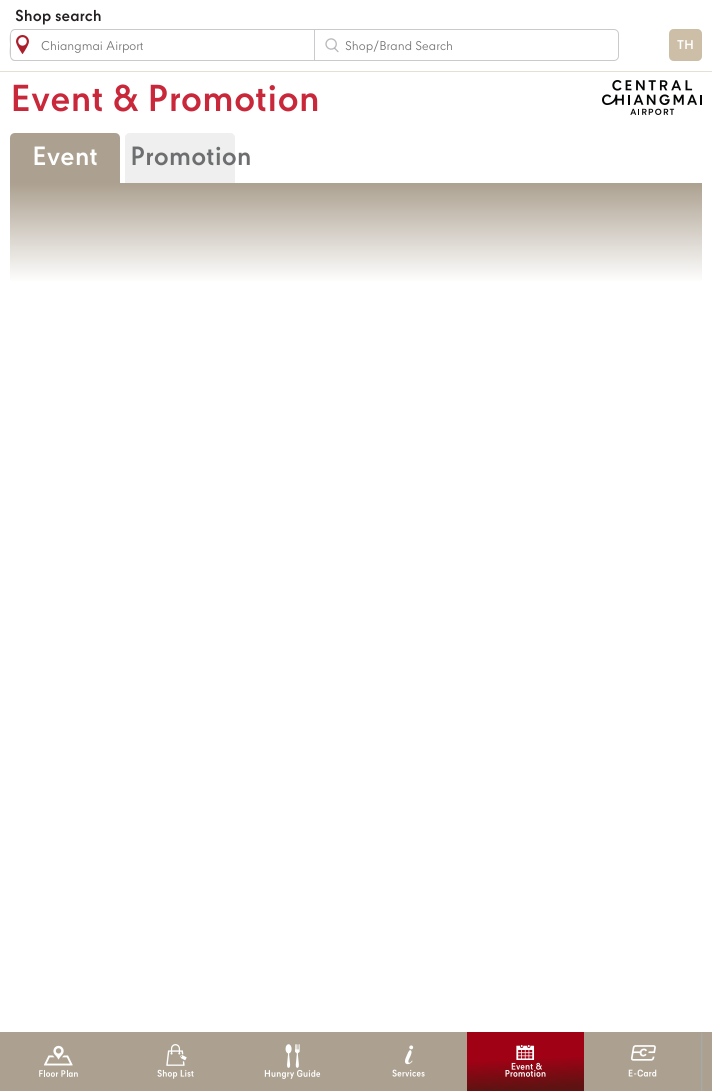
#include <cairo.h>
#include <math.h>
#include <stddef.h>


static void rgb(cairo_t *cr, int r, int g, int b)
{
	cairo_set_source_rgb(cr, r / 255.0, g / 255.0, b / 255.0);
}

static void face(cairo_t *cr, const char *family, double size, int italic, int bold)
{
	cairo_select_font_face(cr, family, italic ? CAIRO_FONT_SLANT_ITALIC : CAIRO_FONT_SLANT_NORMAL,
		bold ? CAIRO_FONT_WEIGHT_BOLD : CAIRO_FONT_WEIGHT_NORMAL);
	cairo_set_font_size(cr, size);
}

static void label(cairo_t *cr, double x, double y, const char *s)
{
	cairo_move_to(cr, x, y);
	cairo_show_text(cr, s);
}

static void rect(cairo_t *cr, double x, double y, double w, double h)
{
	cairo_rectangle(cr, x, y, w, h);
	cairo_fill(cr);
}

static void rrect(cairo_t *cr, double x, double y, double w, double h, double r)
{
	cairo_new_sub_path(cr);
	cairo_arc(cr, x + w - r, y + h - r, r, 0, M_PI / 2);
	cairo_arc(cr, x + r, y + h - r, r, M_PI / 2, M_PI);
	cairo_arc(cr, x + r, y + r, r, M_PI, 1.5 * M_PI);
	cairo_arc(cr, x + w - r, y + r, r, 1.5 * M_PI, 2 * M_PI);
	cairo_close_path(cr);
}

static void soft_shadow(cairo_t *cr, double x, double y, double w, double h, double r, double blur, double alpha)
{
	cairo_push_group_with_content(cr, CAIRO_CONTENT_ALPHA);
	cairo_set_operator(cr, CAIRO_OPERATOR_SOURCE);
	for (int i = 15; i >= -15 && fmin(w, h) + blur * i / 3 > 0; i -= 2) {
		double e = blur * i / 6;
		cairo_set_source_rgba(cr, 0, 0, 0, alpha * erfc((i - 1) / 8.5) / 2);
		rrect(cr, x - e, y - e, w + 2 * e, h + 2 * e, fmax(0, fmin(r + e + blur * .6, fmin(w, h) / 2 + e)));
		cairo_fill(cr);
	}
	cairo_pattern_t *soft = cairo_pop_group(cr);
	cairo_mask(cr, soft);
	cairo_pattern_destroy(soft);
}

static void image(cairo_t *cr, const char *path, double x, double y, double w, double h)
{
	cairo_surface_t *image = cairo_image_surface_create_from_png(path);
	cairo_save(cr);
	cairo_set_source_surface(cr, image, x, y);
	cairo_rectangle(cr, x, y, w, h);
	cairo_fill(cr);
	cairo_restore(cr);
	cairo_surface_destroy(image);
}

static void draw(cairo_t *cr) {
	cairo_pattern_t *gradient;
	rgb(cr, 255, 255, 255);
	cairo_paint(cr);
	rgb(cr, 230, 223, 211);
	rect(cr, 0, 71, 712, 1);
	face(cr, "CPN", 15, 0, 1);
	rgb(cr, 35, 31, 32);
	label(cr, 15, 21, "Shop search");
	image(cr, "image0.png", 16, 35, 13, 19);
	rgb(cr, 201, 202, 203);
	cairo_set_fill_rule(cr, CAIRO_FILL_RULE_EVEN_ODD);
	cairo_new_path(cr);
	cairo_move_to(cr, 15, 29);
	cairo_line_to(cr, 314, 29);
	cairo_line_to(cr, 314, 61);
	cairo_line_to(cr, 14, 61);
	cairo_curve_to(cr, 8, 60, 10, 49, 10, 45);
	cairo_curve_to(cr, 10, 41, 8, 29, 15, 29);
	cairo_close_path(cr);
	cairo_move_to(cr, 15, 30);
	cairo_line_to(cr, 314, 30);
	cairo_line_to(cr, 314, 60);
	cairo_line_to(cr, 15, 60);
	cairo_curve_to(cr, 13, 60, 11, 58, 11, 56);
	cairo_line_to(cr, 11, 34);
	cairo_curve_to(cr, 11, 32, 13, 30, 15, 30);
	cairo_close_path(cr);
	cairo_fill(cr);
	face(cr, "CPN", 12, 0, 0);
	rgb(cr, 117, 117, 117);
	label(cr, 41, 50, "Chiangmai Airport");
	image(cr, "image1.png", 325, 38, 14, 15);
	cairo_new_path(cr);
	cairo_move_to(cr, 314.5, 29.5);
	cairo_line_to(cr, 614, 29.5);
	cairo_curve_to(cr, 616.5, 29.5, 618.5, 31.5, 618.5, 34);
	cairo_line_to(cr, 618.5, 56);
	cairo_curve_to(cr, 618.5, 58.5, 616.5, 60.5, 614, 60.5);
	cairo_line_to(cr, 314.5, 60.5);
	cairo_close_path(cr);
	rgb(cr, 201, 202, 203);
	cairo_set_line_width(cr, 1);
	cairo_stroke(cr);
	rgb(cr, 117, 117, 117);
	label(cr, 345, 50, "Shop/Brand Search");
	rgb(cr, 205, 190, 167);
	rrect(cr, 669, 29, 33, 32, 5);
	cairo_fill(cr);
	cairo_set_source_rgba(cr, 0.804, 0.745, 0.655, 0.5);
	cairo_new_path(cr);
	cairo_move_to(cr, 674, 29);
	cairo_line_to(cr, 697, 29);
	cairo_curve_to(cr, 700, 29, 702, 31, 702, 34);
	cairo_line_to(cr, 702, 56);
	cairo_curve_to(cr, 702, 59, 700, 61, 697, 61);
	cairo_line_to(cr, 674, 61);
	cairo_curve_to(cr, 671, 61, 669, 59, 669, 56);
	cairo_line_to(cr, 669, 34);
	cairo_curve_to(cr, 669, 31, 671, 29, 674, 29);
	cairo_close_path(cr);
	cairo_move_to(cr, 674, 30);
	cairo_line_to(cr, 697, 30);
	cairo_curve_to(cr, 699, 30, 701, 32, 701, 34);
	cairo_line_to(cr, 701, 56);
	cairo_curve_to(cr, 701, 58, 699, 60, 697, 60);
	cairo_line_to(cr, 674, 60);
	cairo_curve_to(cr, 671, 60, 669, 58, 669, 56);
	cairo_line_to(cr, 669, 34);
	cairo_curve_to(cr, 669, 32, 671, 30, 674, 30);
	cairo_close_path(cr);
	cairo_fill(cr);
	face(cr, "CPN", 12, 0, 1);
	rgb(cr, 255, 255, 255);
	label(cr, 677, 49, "TH");
	face(cr, "CPN", 35.5, 0, 1);
	rgb(cr, 201, 39, 58);
	label(cr, 10, 111, "Event & Promotion");
	image(cr, "image2.png", 602, 80, 100, 35);
	rgb(cr, 172, 161, 144);
	cairo_new_path(cr);
	cairo_move_to(cr, 15, 133);
	cairo_line_to(cr, 115, 133);
	cairo_curve_to(cr, 118, 133, 120, 135, 120, 138);
	cairo_line_to(cr, 120, 183);
	cairo_line_to(cr, 10, 183);
	cairo_line_to(cr, 10, 138);
	cairo_curve_to(cr, 10, 135, 12, 133, 15, 133);
	cairo_close_path(cr);
	cairo_fill(cr);
	face(cr, "CPN", 25, 0, 1);
	rgb(cr, 255, 255, 255);
	label(cr, 32, 165, "Event");
	rgb(cr, 239, 239, 239);
	cairo_new_path(cr);
	cairo_move_to(cr, 130, 133);
	cairo_line_to(cr, 230, 133);
	cairo_curve_to(cr, 233, 133, 235, 135, 235, 138);
	cairo_line_to(cr, 235, 183);
	cairo_line_to(cr, 125, 183);
	cairo_line_to(cr, 125, 138);
	cairo_curve_to(cr, 125, 135, 127, 133, 130, 133);
	cairo_close_path(cr);
	cairo_fill(cr);
	rgb(cr, 109, 110, 112);
	label(cr, 130, 165, "Promotion");
	gradient = cairo_pattern_create_linear(356, 183, 356, 283);
	cairo_pattern_add_color_stop_rgba(gradient, 0, 0.675, 0.631, 0.565, 1);
	cairo_pattern_add_color_stop_rgba(gradient, 1, 1, 1, 1, 1);
	cairo_set_source(cr, gradient);
	cairo_pattern_destroy(gradient);
	rect(cr, 10, 183, 692, 98);
	rgb(cr, 172, 161, 144);
	rect(cr, 0, 1032, 712, 59);
	image(cr, "image3.png", 39, 1045, 39, 32);
	image(cr, "image4.png", 157, 1044, 37, 35);
	image(cr, "image5.png", 264, 1044, 57, 35);
	image(cr, "image6.png", 392, 1045, 33, 32);
	gradient = cairo_pattern_create_linear(524, 1030, 527, 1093);
	cairo_pattern_add_color_stop_rgba(gradient, 0.44, 0.631, 0.004, 0.082, 1);
	cairo_pattern_add_color_stop_rgba(gradient, 0.92, 0.373, 0.071, 0.071, 1);
	cairo_set_source(cr, gradient);
	cairo_pattern_destroy(gradient);
	rect(cr, 467, 1032, 117, 59);
	image(cr, "image7.png", 505, 1045, 41, 32);
	rgb(cr, 167, 169, 172);
	soft_shadow(cr, 585, 1033, 117, 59, 0, 0.5, 1);
	rgb(cr, 172, 161, 144);
	rect(cr, 584, 1032, 117, 59);
	image(cr, "image8.png", 628, 1045, 29, 32);
}

int main(void) {
	cairo_surface_t *surface = cairo_image_surface_create(CAIRO_FORMAT_RGB24, 712, 1091);
	cairo_t *cr = cairo_create(surface);
	cairo_font_options_t *options = cairo_font_options_create();
	cairo_font_options_set_hint_metrics(options, CAIRO_HINT_METRICS_OFF);
	cairo_font_options_set_hint_style(options, CAIRO_HINT_STYLE_NONE);
	cairo_set_font_options(cr, options);
	cairo_set_miter_limit(cr, 4);
	draw(cr);
	cairo_surface_write_to_png(surface, "render.png");
	cairo_font_options_destroy(options);
	cairo_destroy(cr);
	cairo_surface_destroy(surface);
	return 0;
}
